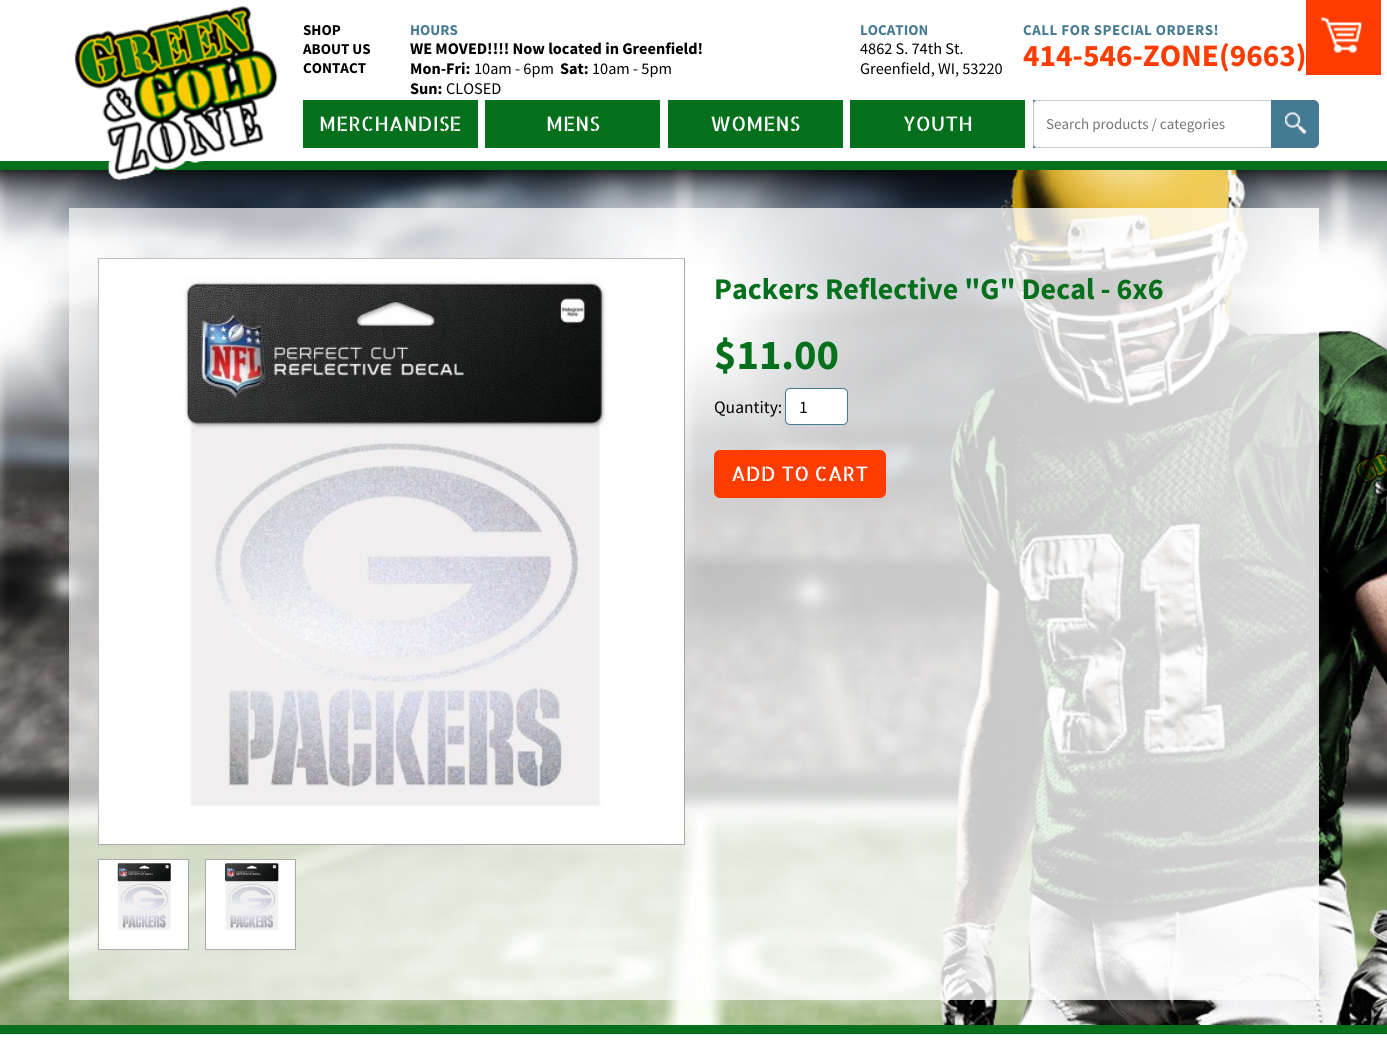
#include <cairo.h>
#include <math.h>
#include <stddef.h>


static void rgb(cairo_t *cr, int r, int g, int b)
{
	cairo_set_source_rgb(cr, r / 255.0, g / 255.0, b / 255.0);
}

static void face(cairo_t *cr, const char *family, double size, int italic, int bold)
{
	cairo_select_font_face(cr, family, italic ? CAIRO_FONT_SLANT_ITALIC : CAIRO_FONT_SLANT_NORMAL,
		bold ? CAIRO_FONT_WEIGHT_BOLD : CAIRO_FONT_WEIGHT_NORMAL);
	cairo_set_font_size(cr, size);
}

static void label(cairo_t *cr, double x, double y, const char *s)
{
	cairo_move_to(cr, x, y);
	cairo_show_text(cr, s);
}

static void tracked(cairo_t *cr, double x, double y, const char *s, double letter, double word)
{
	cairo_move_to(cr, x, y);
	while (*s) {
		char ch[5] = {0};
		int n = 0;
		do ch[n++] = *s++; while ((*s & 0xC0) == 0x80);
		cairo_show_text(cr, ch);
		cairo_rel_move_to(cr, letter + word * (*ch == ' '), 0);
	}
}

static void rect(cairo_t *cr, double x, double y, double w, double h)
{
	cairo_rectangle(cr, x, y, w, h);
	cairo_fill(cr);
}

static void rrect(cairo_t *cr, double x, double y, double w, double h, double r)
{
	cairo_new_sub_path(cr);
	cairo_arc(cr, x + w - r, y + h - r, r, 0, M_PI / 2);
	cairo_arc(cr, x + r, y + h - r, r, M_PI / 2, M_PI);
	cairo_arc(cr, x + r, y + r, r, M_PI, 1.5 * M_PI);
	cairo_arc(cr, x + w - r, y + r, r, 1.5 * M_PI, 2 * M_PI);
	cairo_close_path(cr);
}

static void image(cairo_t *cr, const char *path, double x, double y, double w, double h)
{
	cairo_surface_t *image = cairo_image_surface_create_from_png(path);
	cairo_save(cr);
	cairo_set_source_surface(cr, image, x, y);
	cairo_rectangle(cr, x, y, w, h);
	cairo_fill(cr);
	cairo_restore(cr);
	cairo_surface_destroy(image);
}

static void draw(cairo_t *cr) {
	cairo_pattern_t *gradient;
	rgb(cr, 255, 255, 255);
	cairo_paint(cr);
	rgb(cr, 4, 112, 27);
	rect(cr, 0, 161, 1387, 9);
	image(cr, "image3.png", 0, 170, 1387, 855);
	image(cr, "image0.png", 74, 6, 204, 174);
	face(cr, "Source Sans Pro", 15, 0, 1);
	rgb(cr, 0, 0, 0);
	label(cr, 303, 35, "SHOP");
	label(cr, 303, 54, "ABOUT US");
	label(cr, 303, 73, "CONTACT");
	rgb(cr, 69, 122, 147);
	label(cr, 410, 35, "HOURS");
	face(cr, "Source Sans Pro", 16.25, 0, 1);
	rgb(cr, 0, 0, 0);
	label(cr, 410, 54, "WE MOVED!!!! Now located in Greenfield!");
	label(cr, 410, 74, "Mon-Fri:");
	face(cr, "Source Sans Pro", 16.25, 0, 0);
	label(cr, 474, 74, "10am - 6pm");
	face(cr, "Source Sans Pro", 16.25, 0, 1);
	label(cr, 560, 74, "Sat:");
	face(cr, "Source Sans Pro", 16.25, 0, 0);
	label(cr, 592, 74, "10am - 5pm");
	face(cr, "Source Sans Pro", 16.25, 0, 1);
	label(cr, 410, 94, "Sun:");
	face(cr, "Source Sans Pro", 16.25, 0, 0);
	label(cr, 446, 94, "CLOSED");
	face(cr, "Source Sans Pro", 15, 0, 1);
	rgb(cr, 69, 122, 147);
	label(cr, 860, 35, "LOCATION");
	face(cr, "Source Sans Pro", 16.25, 0, 0);
	rgb(cr, 0, 0, 0);
	label(cr, 860, 54, "4862 S. 74th St.");
	label(cr, 860, 74, "Greenfield, WI, 53220");
	face(cr, "Source Sans Pro", 15, 0, 1);
	rgb(cr, 69, 122, 147);
	tracked(cr, 1023, 35, "CALL FOR SPECIAL ORDERS!", 0.5, 0);
	face(cr, "Source Sans Pro", 31.25, 0, 1);
	rgb(cr, 255, 60, 0);
	label(cr, 1023, 66, "414-546-ZONE(9663)");
	rect(cr, 1306, 0, 75, 75);
	image(cr, "image1.png", 1321, 17, 41, 36);
	rgb(cr, 4, 112, 27);
	rect(cr, 303, 100, 175, 48);
	face(cr, "Allerta Stencil", 20, 0, 0);
	rgb(cr, 255, 255, 255);
	label(cr, 319, 131, "MERCHANDISE");
	rgb(cr, 4, 112, 27);
	rect(cr, 485, 100, 175, 48);
	rgb(cr, 255, 255, 255);
	label(cr, 546, 131, "MENS");
	rgb(cr, 4, 112, 27);
	rect(cr, 668, 100, 175, 48);
	rgb(cr, 255, 255, 255);
	label(cr, 710, 131, "WOMENS");
	rgb(cr, 4, 112, 27);
	rect(cr, 850, 100, 175, 48);
	rgb(cr, 255, 255, 255);
	label(cr, 903, 131, "YOUTH");
	rgb(cr, 69, 122, 148);
	cairo_new_path(cr);
	cairo_move_to(cr, 1033, 100);
	cairo_line_to(cr, 1313, 100);
	cairo_curve_to(cr, 1316.5, 100, 1319, 102.5, 1319, 106);
	cairo_line_to(cr, 1319, 142);
	cairo_curve_to(cr, 1319, 145.5, 1316.5, 148, 1313, 148);
	cairo_line_to(cr, 1033, 148);
	cairo_close_path(cr);
	cairo_fill(cr);
	rgb(cr, 255, 255, 255);
	cairo_new_path(cr);
	cairo_move_to(cr, 1038, 100);
	cairo_line_to(cr, 1313, 100);
	cairo_curve_to(cr, 1316.5, 100, 1319, 102.5, 1319, 106);
	cairo_line_to(cr, 1319, 142);
	cairo_curve_to(cr, 1319, 145.5, 1316.5, 148, 1313, 148);
	cairo_line_to(cr, 1038, 148);
	cairo_curve_to(cr, 1035, 148, 1033, 146, 1033, 143);
	cairo_line_to(cr, 1033, 105);
	cairo_curve_to(cr, 1033, 102, 1035, 100, 1038, 100);
	cairo_close_path(cr);
	cairo_fill(cr);
	rgb(cr, 204, 204, 204);
	cairo_set_fill_rule(cr, CAIRO_FILL_RULE_EVEN_ODD);
	cairo_new_path(cr);
	cairo_move_to(cr, 1038, 100);
	cairo_curve_to(cr, 1035, 100, 1033, 102, 1033, 105);
	cairo_line_to(cr, 1033, 143);
	cairo_curve_to(cr, 1033, 146, 1035, 148, 1038, 148);
	cairo_line_to(cr, 1313, 148);
	cairo_curve_to(cr, 1316, 148, 1319, 145, 1319, 142);
	cairo_line_to(cr, 1319, 106);
	cairo_curve_to(cr, 1319, 103, 1316, 100, 1313, 100);
	cairo_close_path(cr);
	cairo_move_to(cr, 1038, 101);
	cairo_curve_to(cr, 1036, 101, 1034, 103, 1034, 105);
	cairo_line_to(cr, 1034, 143);
	cairo_curve_to(cr, 1034, 145, 1036, 147, 1038, 147);
	cairo_line_to(cr, 1314, 147);
	cairo_curve_to(cr, 1316, 147, 1318, 145, 1318, 143);
	cairo_line_to(cr, 1318, 105);
	cairo_curve_to(cr, 1318, 103, 1316, 101, 1314, 101);
	cairo_close_path(cr);
	cairo_fill(cr);
	face(cr, "Source Sans Pro", 15, 0, 0);
	rgb(cr, 117, 117, 117);
	label(cr, 1046, 129, "Search products / categories");
	rgb(cr, 69, 122, 147);
	cairo_new_path(cr);
	cairo_move_to(cr, 1271, 100);
	cairo_line_to(cr, 1313, 100);
	cairo_curve_to(cr, 1316.5, 100, 1319, 102.5, 1319, 106);
	cairo_line_to(cr, 1319, 142);
	cairo_curve_to(cr, 1319, 145.5, 1316.5, 148, 1313, 148);
	cairo_line_to(cr, 1271, 148);
	cairo_close_path(cr);
	cairo_fill(cr);
	image(cr, "image2.png", 1285, 112, 22, 22);
	cairo_set_source_rgba(cr, 1, 1, 1, 0.66);
	rect(cr, 69, 208, 1250, 792);
	gradient = cairo_pattern_create_linear(69, 604, 1319, 604);
	cairo_pattern_add_color_stop_rgba(gradient, 0, 1, 1, 1, 0);
	cairo_pattern_add_color_stop_rgba(gradient, 1, 1, 1, 1, 0.5);
	cairo_set_source(cr, gradient);
	cairo_pattern_destroy(gradient);
	rect(cr, 152, 208, 1167, 792);
	rgb(cr, 255, 255, 255);
	cairo_rectangle(cr, 98.5, 258.5, 586, 586);
	cairo_fill_preserve(cr);
	rgb(cr, 170, 170, 170);
	cairo_set_line_width(cr, 1);
	cairo_stroke(cr);
	image(cr, "image4.png", 98, 258, 586, 586);
	rgb(cr, 255, 255, 255);
	cairo_rectangle(cr, 98.5, 859.5, 90, 90);
	cairo_fill_preserve(cr);
	rgb(cr, 170, 170, 170);
	cairo_stroke(cr);
	image(cr, "image5.png", 117, 863, 54, 67);
	rgb(cr, 255, 255, 255);
	cairo_rectangle(cr, 205.5, 859.5, 90, 90);
	cairo_fill_preserve(cr);
	rgb(cr, 170, 170, 170);
	cairo_stroke(cr);
	image(cr, "image6.png", 224, 863, 55, 67);
	face(cr, "Source Sans Pro", 30, 0, 1);
	rgb(cr, 4, 112, 27);
	label(cr, 714, 299, "Packers Reflective \"G\" Decal - 6x6");
	face(cr, "Source Sans Pro", 42.5, 0, 1);
	label(cr, 714, 369, "$11.00");
	face(cr, "Source Sans Pro", 17.5, 0, 0);
	rgb(cr, 0, 0, 0);
	label(cr, 714, 413, "Quantity:");
	rgb(cr, 255, 255, 255);
	rrect(cr, 785.5, 388.5, 62, 36, 4.5);
	cairo_fill_preserve(cr);
	rgb(cr, 69, 122, 147);
	cairo_stroke(cr);
	rgb(cr, 0, 0, 0);
	label(cr, 799, 413, "1");
	rgb(cr, 255, 60, 0);
	rrect(cr, 714, 450, 172, 48, 6);
	cairo_fill(cr);
	face(cr, "Allerta Stencil", 20, 0, 0);
	rgb(cr, 255, 255, 255);
	label(cr, 731, 481, "ADD TO CART");
	rgb(cr, 4, 112, 27);
	rect(cr, 0, 1025, 1387, 9);
}

int main(void) {
	cairo_surface_t *surface = cairo_image_surface_create(CAIRO_FORMAT_RGB24, 1387, 1051);
	cairo_t *cr = cairo_create(surface);
	cairo_font_options_t *options = cairo_font_options_create();
	cairo_font_options_set_hint_metrics(options, CAIRO_HINT_METRICS_OFF);
	cairo_font_options_set_hint_style(options, CAIRO_HINT_STYLE_NONE);
	cairo_set_font_options(cr, options);
	cairo_set_miter_limit(cr, 4);
	draw(cr);
	cairo_surface_write_to_png(surface, "render.png");
	cairo_font_options_destroy(options);
	cairo_destroy(cr);
	cairo_surface_destroy(surface);
	return 0;
}
